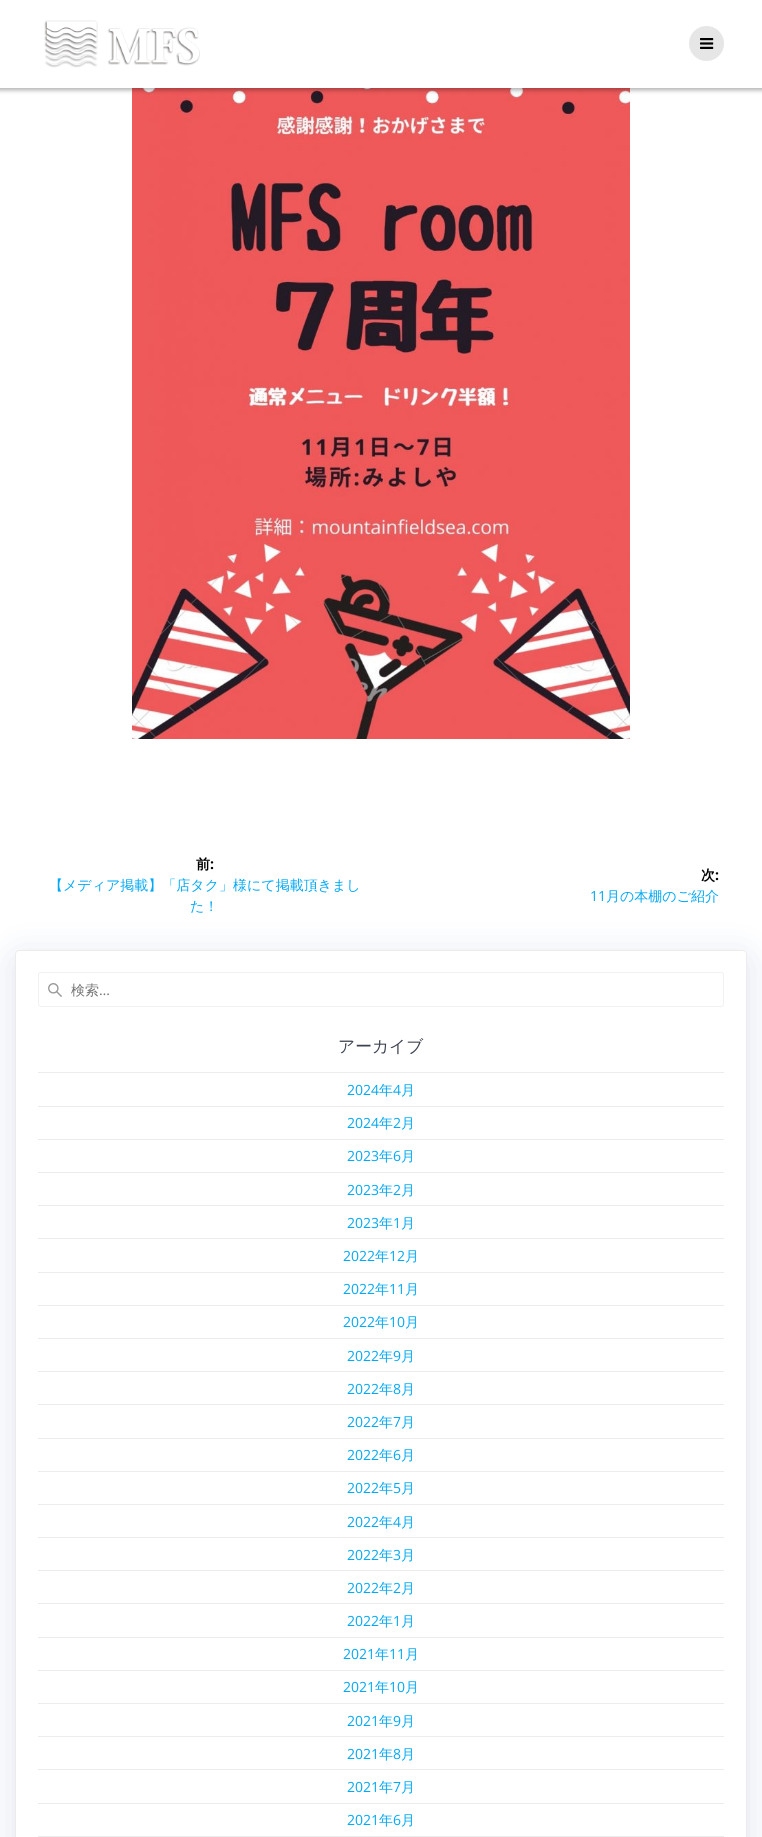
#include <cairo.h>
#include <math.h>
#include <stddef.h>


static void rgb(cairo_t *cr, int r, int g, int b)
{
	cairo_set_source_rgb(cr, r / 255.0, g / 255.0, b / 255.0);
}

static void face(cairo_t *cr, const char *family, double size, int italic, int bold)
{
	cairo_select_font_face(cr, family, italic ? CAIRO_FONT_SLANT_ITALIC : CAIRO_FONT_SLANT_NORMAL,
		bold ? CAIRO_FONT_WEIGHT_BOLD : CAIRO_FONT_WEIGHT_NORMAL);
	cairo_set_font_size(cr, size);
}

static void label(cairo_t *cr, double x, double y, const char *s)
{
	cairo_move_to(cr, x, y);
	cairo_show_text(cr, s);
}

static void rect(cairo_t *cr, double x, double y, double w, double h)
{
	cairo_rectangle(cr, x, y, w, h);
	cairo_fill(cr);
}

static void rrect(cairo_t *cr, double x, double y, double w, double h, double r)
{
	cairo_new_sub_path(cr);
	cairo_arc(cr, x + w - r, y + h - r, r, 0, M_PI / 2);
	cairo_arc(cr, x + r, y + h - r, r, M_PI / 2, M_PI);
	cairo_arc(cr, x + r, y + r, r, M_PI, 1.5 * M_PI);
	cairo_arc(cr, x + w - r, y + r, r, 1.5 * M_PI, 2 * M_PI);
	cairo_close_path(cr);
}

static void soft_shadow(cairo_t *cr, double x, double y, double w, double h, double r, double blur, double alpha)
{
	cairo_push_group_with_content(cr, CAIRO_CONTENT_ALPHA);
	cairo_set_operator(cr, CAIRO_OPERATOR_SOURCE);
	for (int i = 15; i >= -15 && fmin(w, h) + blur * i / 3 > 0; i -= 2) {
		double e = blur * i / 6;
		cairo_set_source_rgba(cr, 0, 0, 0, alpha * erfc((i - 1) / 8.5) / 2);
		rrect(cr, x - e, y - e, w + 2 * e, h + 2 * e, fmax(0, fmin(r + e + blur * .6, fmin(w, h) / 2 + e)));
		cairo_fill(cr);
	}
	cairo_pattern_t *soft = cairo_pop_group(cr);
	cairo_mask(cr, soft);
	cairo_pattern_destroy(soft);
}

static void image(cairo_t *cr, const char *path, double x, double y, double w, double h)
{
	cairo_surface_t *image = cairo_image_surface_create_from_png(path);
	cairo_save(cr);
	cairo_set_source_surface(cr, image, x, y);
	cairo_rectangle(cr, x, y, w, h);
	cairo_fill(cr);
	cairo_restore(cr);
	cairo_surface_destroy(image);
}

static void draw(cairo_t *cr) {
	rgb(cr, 255, 255, 255);
	cairo_paint(cr);
	image(cr, "image2.png", 132, 88, 498, 651);
	rgb(cr, 0, 0, 0);
	soft_shadow(cr, -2, -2, 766, 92, 0, 2.5, 0.33);
	rgb(cr, 255, 255, 255);
	rect(cr, 0, 0, 762, 88);
	image(cr, "image0.png", 44, 20, 156, 48);
	rgb(cr, 230, 230, 230);
	cairo_arc(cr, 706.5, 43.5, 17.5, 0, 2 * M_PI);
	cairo_fill(cr);
	image(cr, "image1.png", 700, 38, 14, 11);
	face(cr, "WenQuanYi Zen Hei", 14, 0, 1);
	rgb(cr, 0, 0, 0);
	label(cr, 196, 869, "前");
	face(cr, "Open Sans", 14, 0, 1);
	label(cr, 210, 869, ":");
	face(cr, "WenQuanYi Zen Hei Medium", 14, 0, 0);
	rgb(cr, 3, 169, 244);
	label(cr, 49, 890, "【メディア掲載】「店タク」様にて掲載頂きまし");
	label(cr, 190, 911, "た！");
	face(cr, "WenQuanYi Zen Hei", 14, 0, 1);
	rgb(cr, 0, 0, 0);
	label(cr, 701, 880, "次");
	face(cr, "Open Sans", 14, 0, 1);
	label(cr, 715, 880, ":");
	face(cr, "Open Sans", 14, 0, 0);
	rgb(cr, 3, 169, 244);
	label(cr, 590, 901, "11");
	face(cr, "WenQuanYi Zen Hei Medium", 14, 0, 0);
	label(cr, 606, 901, "月の本棚のご紹介");
	cairo_save(cr);
	cairo_set_fill_rule(cr, CAIRO_FILL_RULE_EVEN_ODD);
	cairo_new_path(cr);
	cairo_move_to(cr, 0, 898);
	cairo_line_to(cr, 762, 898);
	cairo_line_to(cr, 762, 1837);
	cairo_line_to(cr, 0, 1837);
	cairo_close_path(cr);
	cairo_move_to(cr, 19, 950);
	cairo_line_to(cr, 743, 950);
	cairo_curve_to(cr, 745, 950, 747, 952, 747, 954);
	cairo_line_to(cr, 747, 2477);
	cairo_curve_to(cr, 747, 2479, 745, 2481, 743, 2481);
	cairo_line_to(cr, 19, 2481);
	cairo_curve_to(cr, 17, 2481, 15, 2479, 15, 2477);
	cairo_line_to(cr, 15, 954);
	cairo_curve_to(cr, 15, 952, 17, 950, 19, 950);
	cairo_close_path(cr);
	cairo_clip(cr);
	rgb(cr, 35, 69, 152);
	soft_shadow(cr, 15, 958, 732, 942, 4, 19.5, 0.15);
	cairo_restore(cr);
	rrect(cr, 15.5, 950.5, 731, 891, 3.5);
	rgb(cr, 236, 236, 236);
	cairo_set_line_width(cr, 1);
	cairo_stroke(cr);
	image(cr, "image3.png", 48, 983, 14, 14);
	rrect(cr, 38.5, 972.5, 685, 34, 2.5);
	rgb(cr, 241, 241, 241);
	cairo_stroke(cr);
	rgb(cr, 117, 117, 117);
	label(cr, 71, 995, "検索");
	face(cr, "Open Sans", 14, 0, 0);
	label(cr, 99, 995, "…");
	face(cr, "WenQuanYi Zen Hei Medium", 16.75, 0, 0);
	rgb(cr, 60, 66, 79);
	label(cr, 338, 1052, "アーカイブ");
	rgb(cr, 236, 236, 236);
	rect(cr, 38, 1072, 686, 1);
	face(cr, "Open Sans", 14, 0, 0);
	rgb(cr, 3, 169, 244);
	label(cr, 347, 1095, "2024");
	face(cr, "WenQuanYi Zen Hei Medium", 14, 0, 0);
	label(cr, 379, 1095, "年");
	face(cr, "Open Sans", 14, 0, 0);
	label(cr, 393, 1095, "4");
	face(cr, "WenQuanYi Zen Hei Medium", 14, 0, 0);
	label(cr, 401, 1095, "月");
	rgb(cr, 236, 236, 236);
	rect(cr, 38, 1106, 686, 1);
	face(cr, "Open Sans", 14, 0, 0);
	rgb(cr, 3, 169, 244);
	label(cr, 347, 1128, "2024");
	face(cr, "WenQuanYi Zen Hei Medium", 14, 0, 0);
	label(cr, 379, 1128, "年");
	face(cr, "Open Sans", 14, 0, 0);
	label(cr, 393, 1128, "2");
	face(cr, "WenQuanYi Zen Hei Medium", 14, 0, 0);
	label(cr, 401, 1128, "月");
	rgb(cr, 236, 236, 236);
	rect(cr, 38, 1139, 686, 1);
	face(cr, "Open Sans", 14, 0, 0);
	rgb(cr, 3, 169, 244);
	label(cr, 347, 1161, "2023");
	face(cr, "WenQuanYi Zen Hei Medium", 14, 0, 0);
	label(cr, 379, 1161, "年");
	face(cr, "Open Sans", 14, 0, 0);
	label(cr, 393, 1161, "6");
	face(cr, "WenQuanYi Zen Hei Medium", 14, 0, 0);
	label(cr, 401, 1161, "月");
	rgb(cr, 236, 236, 236);
	rect(cr, 38, 1172, 686, 1);
	face(cr, "Open Sans", 14, 0, 0);
	rgb(cr, 3, 169, 244);
	label(cr, 347, 1195, "2023");
	face(cr, "WenQuanYi Zen Hei Medium", 14, 0, 0);
	label(cr, 379, 1195, "年");
	face(cr, "Open Sans", 14, 0, 0);
	label(cr, 393, 1195, "2");
	face(cr, "WenQuanYi Zen Hei Medium", 14, 0, 0);
	label(cr, 401, 1195, "月");
	rgb(cr, 236, 236, 236);
	rect(cr, 38, 1205, 686, 1);
	face(cr, "Open Sans", 14, 0, 0);
	rgb(cr, 3, 169, 244);
	label(cr, 347, 1228, "2023");
	face(cr, "WenQuanYi Zen Hei Medium", 14, 0, 0);
	label(cr, 379, 1228, "年");
	face(cr, "Open Sans", 14, 0, 0);
	label(cr, 393, 1228, "1");
	face(cr, "WenQuanYi Zen Hei Medium", 14, 0, 0);
	label(cr, 401, 1228, "月");
	rgb(cr, 236, 236, 236);
	rect(cr, 38, 1238, 686, 1);
	face(cr, "Open Sans", 14, 0, 0);
	rgb(cr, 3, 169, 244);
	label(cr, 343, 1261, "2022");
	face(cr, "WenQuanYi Zen Hei Medium", 14, 0, 0);
	label(cr, 375, 1261, "年");
	face(cr, "Open Sans", 14, 0, 0);
	label(cr, 389, 1261, "12");
	face(cr, "WenQuanYi Zen Hei Medium", 14, 0, 0);
	label(cr, 405, 1261, "月");
	rgb(cr, 236, 236, 236);
	rect(cr, 38, 1272, 686, 1);
	face(cr, "Open Sans", 14, 0, 0);
	rgb(cr, 3, 169, 244);
	label(cr, 343, 1294, "2022");
	face(cr, "WenQuanYi Zen Hei Medium", 14, 0, 0);
	label(cr, 375, 1294, "年");
	face(cr, "Open Sans", 14, 0, 0);
	label(cr, 389, 1294, "11");
	face(cr, "WenQuanYi Zen Hei Medium", 14, 0, 0);
	label(cr, 405, 1294, "月");
	rgb(cr, 236, 236, 236);
	rect(cr, 38, 1305, 686, 1);
	face(cr, "Open Sans", 14, 0, 0);
	rgb(cr, 3, 169, 244);
	label(cr, 343, 1327, "2022");
	face(cr, "WenQuanYi Zen Hei Medium", 14, 0, 0);
	label(cr, 375, 1327, "年");
	face(cr, "Open Sans", 14, 0, 0);
	label(cr, 389, 1327, "10");
	face(cr, "WenQuanYi Zen Hei Medium", 14, 0, 0);
	label(cr, 405, 1327, "月");
	rgb(cr, 236, 236, 236);
	rect(cr, 38, 1338, 686, 1);
	face(cr, "Open Sans", 14, 0, 0);
	rgb(cr, 3, 169, 244);
	label(cr, 347, 1361, "2022");
	face(cr, "WenQuanYi Zen Hei Medium", 14, 0, 0);
	label(cr, 379, 1361, "年");
	face(cr, "Open Sans", 14, 0, 0);
	label(cr, 393, 1361, "9");
	face(cr, "WenQuanYi Zen Hei Medium", 14, 0, 0);
	label(cr, 401, 1361, "月");
	rgb(cr, 236, 236, 236);
	rect(cr, 38, 1371, 686, 1);
	face(cr, "Open Sans", 14, 0, 0);
	rgb(cr, 3, 169, 244);
	label(cr, 347, 1394, "2022");
	face(cr, "WenQuanYi Zen Hei Medium", 14, 0, 0);
	label(cr, 379, 1394, "年");
	face(cr, "Open Sans", 14, 0, 0);
	label(cr, 393, 1394, "8");
	face(cr, "WenQuanYi Zen Hei Medium", 14, 0, 0);
	label(cr, 401, 1394, "月");
	rgb(cr, 236, 236, 236);
	rect(cr, 38, 1404, 686, 1);
	face(cr, "Open Sans", 14, 0, 0);
	rgb(cr, 3, 169, 244);
	label(cr, 347, 1427, "2022");
	face(cr, "WenQuanYi Zen Hei Medium", 14, 0, 0);
	label(cr, 379, 1427, "年");
	face(cr, "Open Sans", 14, 0, 0);
	label(cr, 393, 1427, "7");
	face(cr, "WenQuanYi Zen Hei Medium", 14, 0, 0);
	label(cr, 401, 1427, "月");
	rgb(cr, 236, 236, 236);
	rect(cr, 38, 1438, 686, 1);
	face(cr, "Open Sans", 14, 0, 0);
	rgb(cr, 3, 169, 244);
	label(cr, 347, 1460, "2022");
	face(cr, "WenQuanYi Zen Hei Medium", 14, 0, 0);
	label(cr, 379, 1460, "年");
	face(cr, "Open Sans", 14, 0, 0);
	label(cr, 393, 1460, "6");
	face(cr, "WenQuanYi Zen Hei Medium", 14, 0, 0);
	label(cr, 401, 1460, "月");
	rgb(cr, 236, 236, 236);
	rect(cr, 38, 1471, 686, 1);
	face(cr, "Open Sans", 14, 0, 0);
	rgb(cr, 3, 169, 244);
	label(cr, 347, 1493, "2022");
	face(cr, "WenQuanYi Zen Hei Medium", 14, 0, 0);
	label(cr, 379, 1493, "年");
	face(cr, "Open Sans", 14, 0, 0);
	label(cr, 393, 1493, "5");
	face(cr, "WenQuanYi Zen Hei Medium", 14, 0, 0);
	label(cr, 401, 1493, "月");
	rgb(cr, 236, 236, 236);
	rect(cr, 38, 1504, 686, 1);
	face(cr, "Open Sans", 14, 0, 0);
	rgb(cr, 3, 169, 244);
	label(cr, 347, 1527, "2022");
	face(cr, "WenQuanYi Zen Hei Medium", 14, 0, 0);
	label(cr, 379, 1527, "年");
	face(cr, "Open Sans", 14, 0, 0);
	label(cr, 393, 1527, "4");
	face(cr, "WenQuanYi Zen Hei Medium", 14, 0, 0);
	label(cr, 401, 1527, "月");
	rgb(cr, 236, 236, 236);
	rect(cr, 38, 1537, 686, 1);
	face(cr, "Open Sans", 14, 0, 0);
	rgb(cr, 3, 169, 244);
	label(cr, 347, 1560, "2022");
	face(cr, "WenQuanYi Zen Hei Medium", 14, 0, 0);
	label(cr, 379, 1560, "年");
	face(cr, "Open Sans", 14, 0, 0);
	label(cr, 393, 1560, "3");
	face(cr, "WenQuanYi Zen Hei Medium", 14, 0, 0);
	label(cr, 401, 1560, "月");
	rgb(cr, 236, 236, 236);
	rect(cr, 38, 1570, 686, 1);
	face(cr, "Open Sans", 14, 0, 0);
	rgb(cr, 3, 169, 244);
	label(cr, 347, 1593, "2022");
	face(cr, "WenQuanYi Zen Hei Medium", 14, 0, 0);
	label(cr, 379, 1593, "年");
	face(cr, "Open Sans", 14, 0, 0);
	label(cr, 393, 1593, "2");
	face(cr, "WenQuanYi Zen Hei Medium", 14, 0, 0);
	label(cr, 401, 1593, "月");
	rgb(cr, 236, 236, 236);
	rect(cr, 38, 1603, 686, 1);
	face(cr, "Open Sans", 14, 0, 0);
	rgb(cr, 3, 169, 244);
	label(cr, 347, 1626, "2022");
	face(cr, "WenQuanYi Zen Hei Medium", 14, 0, 0);
	label(cr, 379, 1626, "年");
	face(cr, "Open Sans", 14, 0, 0);
	label(cr, 393, 1626, "1");
	face(cr, "WenQuanYi Zen Hei Medium", 14, 0, 0);
	label(cr, 401, 1626, "月");
	rgb(cr, 236, 236, 236);
	rect(cr, 38, 1637, 686, 1);
	face(cr, "Open Sans", 14, 0, 0);
	rgb(cr, 3, 169, 244);
	label(cr, 343, 1659, "2021");
	face(cr, "WenQuanYi Zen Hei Medium", 14, 0, 0);
	label(cr, 375, 1659, "年");
	face(cr, "Open Sans", 14, 0, 0);
	label(cr, 389, 1659, "11");
	face(cr, "WenQuanYi Zen Hei Medium", 14, 0, 0);
	label(cr, 405, 1659, "月");
	rgb(cr, 236, 236, 236);
	rect(cr, 38, 1670, 686, 1);
	face(cr, "Open Sans", 14, 0, 0);
	rgb(cr, 3, 169, 244);
	label(cr, 343, 1692, "2021");
	face(cr, "WenQuanYi Zen Hei Medium", 14, 0, 0);
	label(cr, 375, 1692, "年");
	face(cr, "Open Sans", 14, 0, 0);
	label(cr, 389, 1692, "10");
	face(cr, "WenQuanYi Zen Hei Medium", 14, 0, 0);
	label(cr, 405, 1692, "月");
	rgb(cr, 236, 236, 236);
	rect(cr, 38, 1703, 686, 1);
	face(cr, "Open Sans", 14, 0, 0);
	rgb(cr, 3, 169, 244);
	label(cr, 347, 1726, "2021");
	face(cr, "WenQuanYi Zen Hei Medium", 14, 0, 0);
	label(cr, 379, 1726, "年");
	face(cr, "Open Sans", 14, 0, 0);
	label(cr, 393, 1726, "9");
	face(cr, "WenQuanYi Zen Hei Medium", 14, 0, 0);
	label(cr, 401, 1726, "月");
	rgb(cr, 236, 236, 236);
	rect(cr, 38, 1736, 686, 1);
	face(cr, "Open Sans", 14, 0, 0);
	rgb(cr, 3, 169, 244);
	label(cr, 347, 1759, "2021");
	face(cr, "WenQuanYi Zen Hei Medium", 14, 0, 0);
	label(cr, 379, 1759, "年");
	face(cr, "Open Sans", 14, 0, 0);
	label(cr, 393, 1759, "8");
	face(cr, "WenQuanYi Zen Hei Medium", 14, 0, 0);
	label(cr, 401, 1759, "月");
	rgb(cr, 236, 236, 236);
	rect(cr, 38, 1769, 686, 1);
	face(cr, "Open Sans", 14, 0, 0);
	rgb(cr, 3, 169, 244);
	label(cr, 347, 1792, "2021");
	face(cr, "WenQuanYi Zen Hei Medium", 14, 0, 0);
	label(cr, 379, 1792, "年");
	face(cr, "Open Sans", 14, 0, 0);
	label(cr, 393, 1792, "7");
	face(cr, "WenQuanYi Zen Hei Medium", 14, 0, 0);
	label(cr, 401, 1792, "月");
	rgb(cr, 236, 236, 236);
	rect(cr, 38, 1803, 686, 1);
	face(cr, "Open Sans", 14, 0, 0);
	rgb(cr, 3, 169, 244);
	label(cr, 347, 1825, "2021");
	face(cr, "WenQuanYi Zen Hei Medium", 14, 0, 0);
	label(cr, 379, 1825, "年");
	face(cr, "Open Sans", 14, 0, 0);
	label(cr, 393, 1825, "6");
	face(cr, "WenQuanYi Zen Hei Medium", 14, 0, 0);
	label(cr, 401, 1825, "月");
	rgb(cr, 236, 236, 236);
	rect(cr, 38, 1836, 686, 1);
}

int main(void) {
	cairo_surface_t *surface = cairo_image_surface_create(CAIRO_FORMAT_RGB24, 762, 1837);
	cairo_t *cr = cairo_create(surface);
	cairo_font_options_t *options = cairo_font_options_create();
	cairo_font_options_set_hint_metrics(options, CAIRO_HINT_METRICS_OFF);
	cairo_font_options_set_hint_style(options, CAIRO_HINT_STYLE_NONE);
	cairo_set_font_options(cr, options);
	cairo_set_miter_limit(cr, 4);
	draw(cr);
	cairo_surface_write_to_png(surface, "render.png");
	cairo_font_options_destroy(options);
	cairo_destroy(cr);
	cairo_surface_destroy(surface);
	return 0;
}
